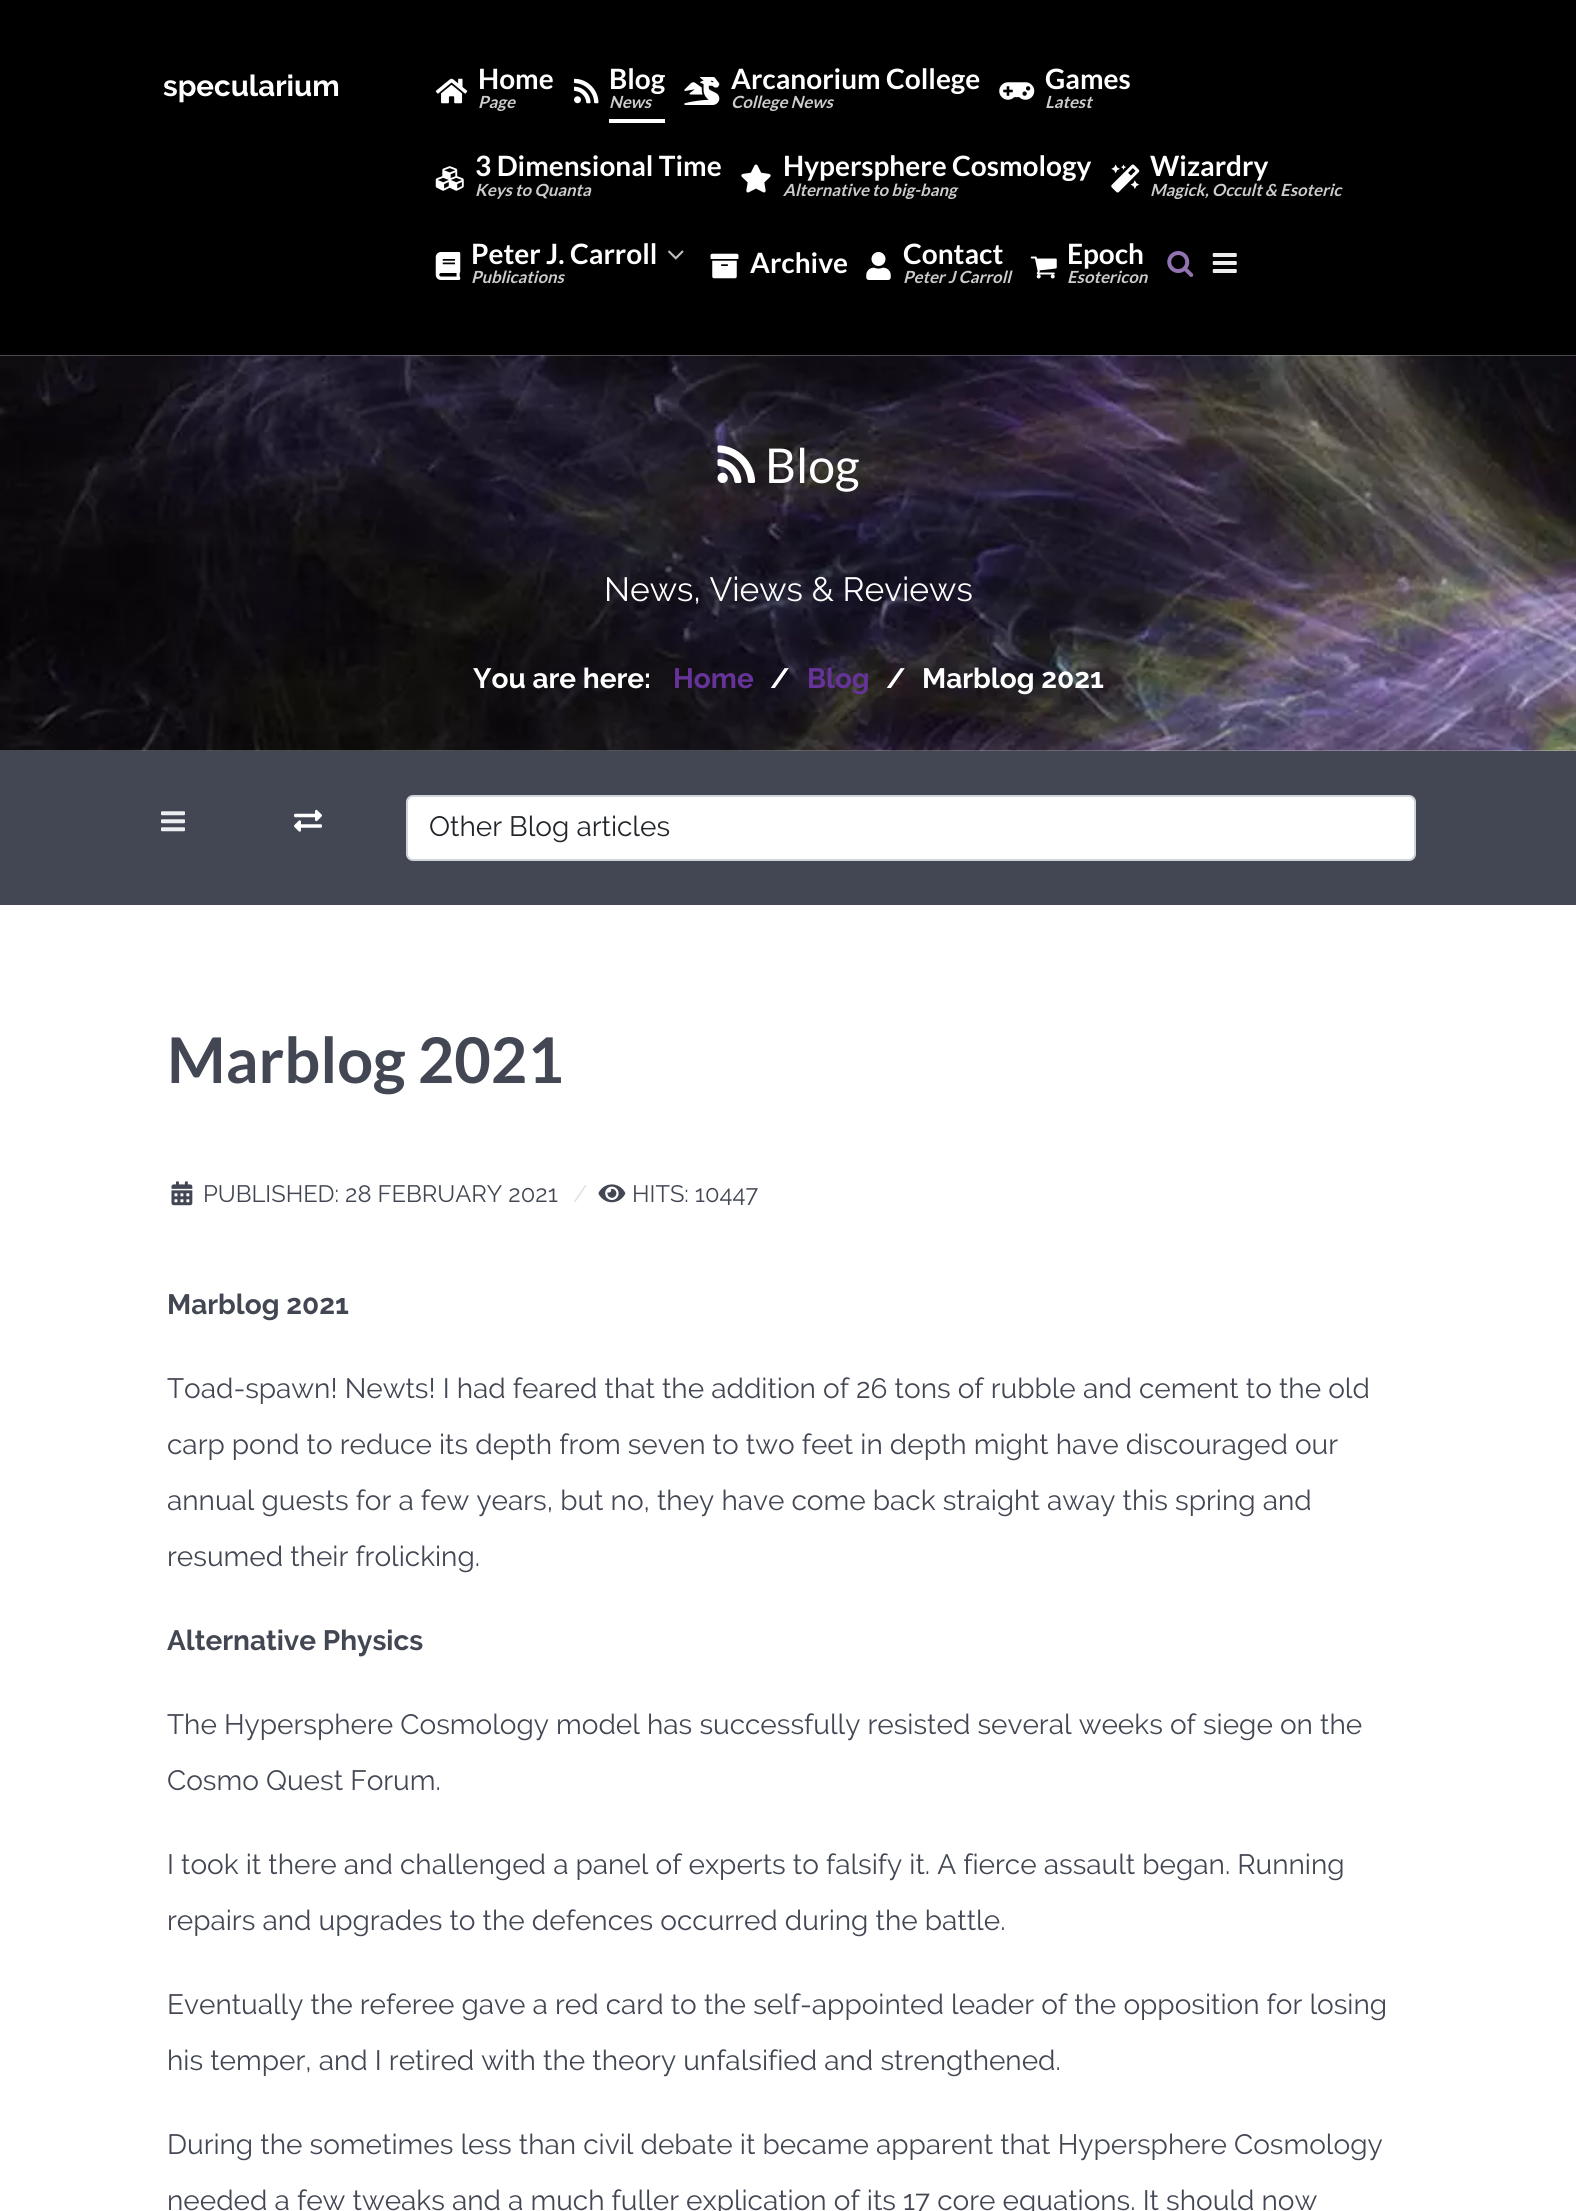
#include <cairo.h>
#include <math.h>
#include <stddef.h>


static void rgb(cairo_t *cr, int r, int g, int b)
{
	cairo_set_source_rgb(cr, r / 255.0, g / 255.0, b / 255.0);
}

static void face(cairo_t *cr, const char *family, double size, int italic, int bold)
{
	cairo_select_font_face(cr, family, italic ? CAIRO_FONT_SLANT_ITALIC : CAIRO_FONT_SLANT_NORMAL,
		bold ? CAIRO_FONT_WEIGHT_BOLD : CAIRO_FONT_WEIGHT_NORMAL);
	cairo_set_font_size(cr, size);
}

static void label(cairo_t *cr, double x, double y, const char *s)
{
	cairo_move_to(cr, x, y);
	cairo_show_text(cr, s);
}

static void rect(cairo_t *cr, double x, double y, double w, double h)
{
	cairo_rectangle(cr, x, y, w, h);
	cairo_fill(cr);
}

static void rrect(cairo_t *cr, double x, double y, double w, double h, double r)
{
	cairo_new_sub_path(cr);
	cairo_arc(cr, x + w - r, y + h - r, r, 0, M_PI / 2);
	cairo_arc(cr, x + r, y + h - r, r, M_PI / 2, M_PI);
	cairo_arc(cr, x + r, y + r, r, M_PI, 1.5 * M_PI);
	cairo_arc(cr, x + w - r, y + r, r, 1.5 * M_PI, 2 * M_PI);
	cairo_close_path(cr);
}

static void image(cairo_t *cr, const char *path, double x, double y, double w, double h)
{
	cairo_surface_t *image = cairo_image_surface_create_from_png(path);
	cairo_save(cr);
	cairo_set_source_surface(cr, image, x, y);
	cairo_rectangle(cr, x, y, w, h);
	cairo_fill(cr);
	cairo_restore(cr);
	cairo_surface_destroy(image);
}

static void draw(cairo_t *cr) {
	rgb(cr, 255, 255, 255);
	cairo_paint(cr);
	rgb(cr, 0, 0, 0);
	rect(cr, 0, 0, 1576, 355);
	face(cr, "Raleway", 29.5, 0, 1);
	rgb(cr, 255, 255, 255);
	label(cr, 163, 96, "specularium");
	image(cr, "image0.png", 435, 78, 33, 26);
	face(cr, "Lato", 28, 0, 1);
	label(cr, 478, 89, "Home");
	face(cr, "Lato", 16.75, 1, 1);
	rgb(cr, 204, 204, 204);
	label(cr, 478, 108, "Page");
	image(cr, "image1.png", 574, 78, 25, 26);
	rgb(cr, 255, 255, 255);
	rect(cr, 609, 119, 56, 4);
	face(cr, "Lato", 28, 0, 1);
	label(cr, 609, 89, "Blog");
	face(cr, "Lato", 16.75, 1, 1);
	rgb(cr, 204, 204, 204);
	label(cr, 609, 108, "News");
	image(cr, "image2.png", 684, 77, 36, 28);
	face(cr, "Lato", 28, 0, 1);
	rgb(cr, 255, 255, 255);
	label(cr, 731, 89, "Arcanorium College");
	face(cr, "Lato", 16.75, 1, 1);
	rgb(cr, 204, 204, 204);
	label(cr, 731, 108, "College News");
	image(cr, "image3.png", 999, 82, 36, 18);
	face(cr, "Lato", 28, 0, 1);
	rgb(cr, 255, 255, 255);
	label(cr, 1045, 89, "Games");
	face(cr, "Lato", 16.75, 1, 1);
	rgb(cr, 204, 204, 204);
	label(cr, 1045, 108, "Latest");
	image(cr, "image4.png", 435, 166, 29, 25);
	face(cr, "Lato", 28, 0, 1);
	rgb(cr, 255, 255, 255);
	label(cr, 475, 176, "3 Dimensional Time");
	face(cr, "Lato", 16.75, 1, 1);
	rgb(cr, 204, 204, 204);
	label(cr, 475, 196, "Keys to Quanta");
	image(cr, "image5.png", 741, 164, 30, 29);
	face(cr, "Lato", 28, 0, 1);
	rgb(cr, 255, 255, 255);
	label(cr, 783, 176, "Hypersphere Cosmology");
	face(cr, "Lato", 16.75, 1, 1);
	rgb(cr, 204, 204, 204);
	label(cr, 783, 196, "Alternative to big-bang");
	image(cr, "image6.png", 1111, 164, 29, 29);
	face(cr, "Lato", 28, 0, 1);
	rgb(cr, 255, 255, 255);
	label(cr, 1150, 176, "Wizardry");
	face(cr, "Lato", 16.75, 1, 1);
	rgb(cr, 204, 204, 204);
	label(cr, 1150, 196, "Magick, Occult & Esoteric");
	image(cr, "image7.png", 435, 252, 26, 28);
	face(cr, "Lato", 28, 0, 1);
	rgb(cr, 255, 255, 255);
	label(cr, 471, 264, "Peter J. Carroll");
	face(cr, "Lato", 16.75, 1, 1);
	rgb(cr, 204, 204, 204);
	label(cr, 471, 283, "Publications");
	image(cr, "image8.png", 668, 250, 16, 10);
	image(cr, "image9.png", 710, 253, 29, 26);
	face(cr, "Lato", 28, 0, 1);
	rgb(cr, 255, 255, 255);
	label(cr, 750, 273, "Archive");
	image(cr, "image10.png", 866, 252, 25, 28);
	label(cr, 903, 264, "Contact");
	face(cr, "Lato", 16.75, 1, 1);
	rgb(cr, 204, 204, 204);
	label(cr, 903, 283, "Peter J Carroll");
	image(cr, "image11.png", 1030, 256, 27, 23);
	face(cr, "Lato", 28, 0, 1);
	rgb(cr, 255, 255, 255);
	label(cr, 1067, 264, "Epoch");
	face(cr, "Lato", 16.75, 1, 1);
	rgb(cr, 204, 204, 204);
	label(cr, 1067, 283, "Esotericon");
	image(cr, "image12.png", 1167, 251, 27, 26);
	image(cr, "image13.png", 1212, 253, 25, 20);
	image(cr, "image14.png", 0, 355, 1576, 396);
	image(cr, "image15.png", 717, 445, 39, 38);
	face(cr, "Lato", 48, 0, 0);
	rgb(cr, 255, 255, 255);
	label(cr, 765, 483, "Blog");
	face(cr, "Raleway", 33.6, 0, 0);
	label(cr, 604, 601, "News, Views & Reviews");
	face(cr, "Raleway", 28, 0, 1);
	label(cr, 473, 688, "You are here:");
	rgb(cr, 102, 51, 153);
	label(cr, 673, 688, "Home");
	rgb(cr, 255, 255, 255);
	label(cr, 770, 688, "/");
	rgb(cr, 102, 51, 153);
	label(cr, 807, 688, "Blog");
	rgb(cr, 255, 255, 255);
	label(cr, 886, 688, "/");
	label(cr, 922, 688, "Marblog 2021");
	rgb(cr, 66, 71, 83);
	rect(cr, 0, 751, 1576, 154);
	image(cr, "image16.png", 161, 811, 24, 21);
	image(cr, "image17.png", 294, 809, 28, 23);
	rgb(cr, 255, 255, 255);
	rrect(cr, 407, 796, 1008, 64, 6);
	cairo_fill_preserve(cr);
	rgb(cr, 206, 212, 218);
	cairo_stroke(cr);
	face(cr, "Raleway", 28, 0, 0);
	rgb(cr, 33, 37, 41);
	label(cr, 429, 836, "Other Blog articles");
	face(cr, "Lato", 63, 0, 1);
	rgb(cr, 66, 71, 83);
	label(cr, 167, 1083, "Marblog 2021");
	image(cr, "image18.png", 171, 1181, 22, 25);
	face(cr, "Raleway", 23.75, 0, 0);
	label(cr, 203, 1202, "PUBLISHED: 28 FEBRUARY 2021");
	rgb(cr, 224, 224, 229);
	label(cr, 573, 1202, "/");
	image(cr, "image19.png", 598, 1184, 28, 19);
	rgb(cr, 66, 71, 83);
	label(cr, 632, 1202, "HITS: 10447");
	face(cr, "Raleway", 28, 0, 1);
	label(cr, 167, 1314, "Marblog 2021");
	face(cr, "Raleway", 28, 0, 0);
	label(cr, 167, 1398, "Toad-spawn! Newts! I had feared that the addition of 26 tons of rubble and cement to the old");
	label(cr, 167, 1454, "carp pond to reduce its depth from seven to two feet in depth might have discouraged our");
	label(cr, 167, 1510, "annual guests for a few years, but no, they have come back straight away this spring and");
	label(cr, 167, 1566, "resumed their frolicking.");
	face(cr, "Raleway", 28, 0, 1);
	label(cr, 167, 1650, "Alternative Physics");
	face(cr, "Raleway", 28, 0, 0);
	label(cr, 167, 1734, "The Hypersphere Cosmology model has successfully resisted several weeks of siege on the");
	label(cr, 167, 1790, "Cosmo Quest Forum.");
	label(cr, 167, 1874, "I took it there and challenged a panel of experts to falsify it. A fierce assault began. Running");
	label(cr, 167, 1930, "repairs and upgrades to the defences occurred during the battle.");
	label(cr, 167, 2014, "Eventually the referee gave a red card to the self-appointed leader of the opposition for losing");
	label(cr, 167, 2070, "his temper, and I retired with the theory unfalsified and strengthened.");
	label(cr, 167, 2154, "During the sometimes less than civil debate it became apparent that Hypersphere Cosmology");
	label(cr, 167, 2210, "needed a few tweaks and a much fuller explication of its 17 core equations. It should now");
}

int main(void) {
	cairo_surface_t *surface = cairo_image_surface_create(CAIRO_FORMAT_RGB24, 1576, 2211);
	cairo_t *cr = cairo_create(surface);
	cairo_font_options_t *options = cairo_font_options_create();
	cairo_font_options_set_hint_metrics(options, CAIRO_HINT_METRICS_OFF);
	cairo_font_options_set_hint_style(options, CAIRO_HINT_STYLE_NONE);
	cairo_set_font_options(cr, options);
	cairo_set_miter_limit(cr, 4);
	draw(cr);
	cairo_surface_write_to_png(surface, "render.png");
	cairo_font_options_destroy(options);
	cairo_destroy(cr);
	cairo_surface_destroy(surface);
	return 0;
}
